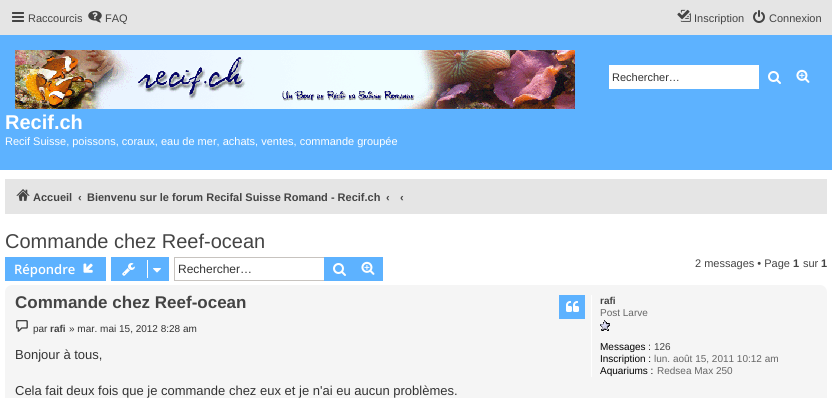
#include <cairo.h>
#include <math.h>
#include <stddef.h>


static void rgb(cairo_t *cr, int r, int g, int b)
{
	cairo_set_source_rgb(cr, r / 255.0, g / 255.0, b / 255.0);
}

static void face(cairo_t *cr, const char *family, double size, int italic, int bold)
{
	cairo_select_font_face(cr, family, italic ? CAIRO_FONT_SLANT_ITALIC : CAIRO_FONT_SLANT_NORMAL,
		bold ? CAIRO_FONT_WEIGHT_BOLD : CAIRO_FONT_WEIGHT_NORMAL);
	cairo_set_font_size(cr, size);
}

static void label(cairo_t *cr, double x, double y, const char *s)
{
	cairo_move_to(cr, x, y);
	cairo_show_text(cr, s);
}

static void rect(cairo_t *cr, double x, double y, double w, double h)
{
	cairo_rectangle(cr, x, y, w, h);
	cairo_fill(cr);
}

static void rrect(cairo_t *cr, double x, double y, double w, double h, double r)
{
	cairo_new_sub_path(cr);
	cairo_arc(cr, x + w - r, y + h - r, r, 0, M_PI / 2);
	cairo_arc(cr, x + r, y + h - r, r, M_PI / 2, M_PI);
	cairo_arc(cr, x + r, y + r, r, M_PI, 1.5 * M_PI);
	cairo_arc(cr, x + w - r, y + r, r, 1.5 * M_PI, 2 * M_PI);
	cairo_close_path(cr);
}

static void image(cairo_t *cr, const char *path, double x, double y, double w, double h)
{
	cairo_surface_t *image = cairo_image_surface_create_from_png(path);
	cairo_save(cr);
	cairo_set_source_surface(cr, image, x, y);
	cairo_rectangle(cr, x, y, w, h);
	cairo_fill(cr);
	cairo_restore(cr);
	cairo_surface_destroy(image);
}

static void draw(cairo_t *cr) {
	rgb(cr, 255, 255, 255);
	cairo_paint(cr);
	rgb(cr, 229, 229, 229);
	rect(cr, 0, 0, 832, 35);
	image(cr, "image0.png", 12, 12, 12, 10);
	face(cr, "Liberation Sans", 11, 0, 0);
	rgb(cr, 68, 68, 68);
	label(cr, 28, 22, "Raccourcis");
	image(cr, "image1.png", 88, 10, 14, 13);
	label(cr, 105, 22, "FAQ");
	image(cr, "image2.png", 677, 9, 14, 13);
	label(cr, 694, 22, "Inscription");
	image(cr, "image3.png", 753, 10, 12, 13);
	label(cr, 769, 22, "Connexion");
	rgb(cr, 93, 178, 255);
	rect(cr, 0, 35, 832, 135);
	rgb(cr, 255, 255, 255);
	rect(cr, 609, 65, 150, 24);
	rgb(cr, 51, 51, 51);
	label(cr, 612, 81, "Rechercher…");
	image(cr, "image4.png", 768, 71, 13, 13);
	image(cr, "image5.png", 796, 69, 14, 14);
	image(cr, "image6.png", 15, 50, 560, 59);
	face(cr, "Liberation Sans", 20, 0, 1);
	rgb(cr, 255, 255, 255);
	label(cr, 5, 129, "Recif.ch");
	face(cr, "Liberation Sans", 11, 0, 0);
	label(cr, 5, 145, "Recif Suisse, poissons, coraux, eau de mer, achats, ventes, commande groupée");
	rgb(cr, 229, 229, 229);
	rect(cr, 5, 179, 822, 35);
	image(cr, "image7.png", 16, 189, 14, 12);
	face(cr, "Liberation Sans", 11, 0, 1);
	rgb(cr, 68, 68, 68);
	label(cr, 33, 201, "Accueil");
	label(cr, 78, 201, "‹");
	label(cr, 87, 201, "Bienvenu sur le forum Recifal Suisse Romand - Recif.ch");
	label(cr, 386, 201, "‹");
	label(cr, 400, 201, "‹");
	face(cr, "Liberation Sans", 20, 0, 0);
	label(cr, 5, 248, "Commande chez Reef-ocean");
	rgb(cr, 93, 178, 255);
	rect(cr, 5, 257, 101, 24);
	face(cr, "Open Sans SemiBold", 13, 0, 0);
	rgb(cr, 255, 255, 255);
	label(cr, 14, 274, "Répondre");
	image(cr, "image8.png", 83, 263, 10, 10);
	rgb(cr, 93, 178, 255);
	rect(cr, 111, 257, 58, 24);
	image(cr, "image9.png", 122, 263, 13, 13);
	rgb(cr, 255, 255, 255);
	rect(cr, 147, 260, 1, 18);
	image(cr, "image10.png", 153, 268, 8, 5);
	rgb(cr, 199, 195, 191);
	rect(cr, 174, 257, 150, 1);
	rect(cr, 174, 280, 150, 1);
	rect(cr, 174, 257, 1, 24);
	face(cr, "Liberation Sans", 12, 0, 0);
	rgb(cr, 51, 51, 51);
	label(cr, 178, 273, "Rechercher…");
	rgb(cr, 93, 178, 255);
	rect(cr, 324, 257, 30, 24);
	image(cr, "image4.png", 333, 263, 13, 13);
	rect(cr, 354, 258, 28, 22);
	rect(cr, 354, 257, 29, 1);
	rect(cr, 382, 257, 1, 24);
	rect(cr, 354, 280, 29, 1);
	image(cr, "image5.png", 361, 261, 14, 14);
	face(cr, "Liberation Sans", 11, 0, 0);
	rgb(cr, 68, 68, 68);
	label(cr, 695, 267, "2 messages • Page");
	face(cr, "Liberation Sans", 11, 0, 1);
	label(cr, 793, 267, "1");
	face(cr, "Liberation Sans", 11, 0, 0);
	label(cr, 803, 267, "sur");
	face(cr, "Liberation Sans", 11, 0, 1);
	label(cr, 821, 267, "1");
	rgb(cr, 245, 245, 245);
	rrect(cr, 5, 285, 822, 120, 7);
	cairo_fill(cr);
	face(cr, "Liberation Sans", 17, 0, 1);
	rgb(cr, 68, 68, 68);
	label(cr, 15, 308, "Commande chez Reef-ocean");
	rgb(cr, 93, 178, 255);
	rect(cr, 559, 295, 26, 24);
	image(cr, "image11.png", 566, 301, 13, 11);
	image(cr, "image12.png", 16, 320, 12, 12);
	face(cr, "Liberation Sans", 10, 0, 0);
	rgb(cr, 51, 51, 51);
	label(cr, 33, 332, "par");
	face(cr, "Liberation Sans", 10, 0, 1);
	rgb(cr, 68, 68, 68);
	label(cr, 50, 332, "rafi");
	face(cr, "Liberation Sans", 10, 0, 0);
	rgb(cr, 51, 51, 51);
	label(cr, 69, 332, "» mar. mai 15, 2012 8:28 am");
	face(cr, "Liberation Sans", 13, 0, 0);
	label(cr, 15, 359, "Bonjour à tous,");
	label(cr, 15, 395, "Cela fait deux fois que je commande chez eux et je n'ai eu aucun problèmes.");
	rgb(cr, 255, 255, 255);
	rect(cr, 591, 295, 1, 82);
	face(cr, "Liberation Sans", 10, 0, 1);
	rgb(cr, 68, 68, 68);
	label(cr, 600, 304, "rafi");
	face(cr, "Liberation Sans", 10, 0, 0);
	rgb(cr, 102, 102, 102);
	label(cr, 600, 316, "Post Larve");
	image(cr, "image13.png", 600, 320, 10, 11);
	rgb(cr, 0, 0, 0);
	label(cr, 600, 350, "Messages :");
	rgb(cr, 68, 68, 68);
	label(cr, 654, 350, "126");
	rgb(cr, 0, 0, 0);
	label(cr, 600, 362, "Inscription :");
	rgb(cr, 102, 102, 102);
	label(cr, 654, 362, "lun. août 15, 2011 10:12 am");
	rgb(cr, 0, 0, 0);
	label(cr, 600, 374, "Aquariums :");
	rgb(cr, 102, 102, 102);
	label(cr, 657, 374, "Redsea Max 250");
}

int main(void) {
	cairo_surface_t *surface = cairo_image_surface_create(CAIRO_FORMAT_RGB24, 832, 398);
	cairo_t *cr = cairo_create(surface);
	cairo_font_options_t *options = cairo_font_options_create();
	cairo_font_options_set_hint_metrics(options, CAIRO_HINT_METRICS_OFF);
	cairo_font_options_set_hint_style(options, CAIRO_HINT_STYLE_NONE);
	cairo_set_font_options(cr, options);
	cairo_set_miter_limit(cr, 4);
	draw(cr);
	cairo_surface_write_to_png(surface, "render.png");
	cairo_font_options_destroy(options);
	cairo_destroy(cr);
	cairo_surface_destroy(surface);
	return 0;
}
